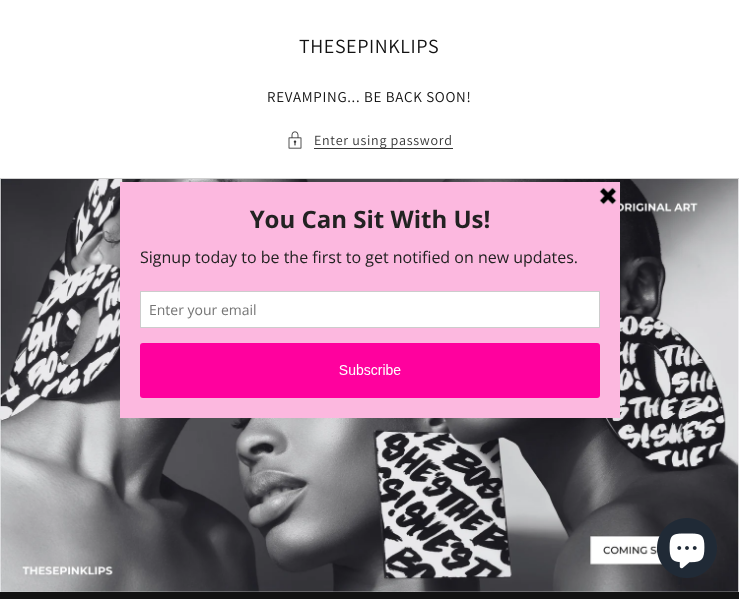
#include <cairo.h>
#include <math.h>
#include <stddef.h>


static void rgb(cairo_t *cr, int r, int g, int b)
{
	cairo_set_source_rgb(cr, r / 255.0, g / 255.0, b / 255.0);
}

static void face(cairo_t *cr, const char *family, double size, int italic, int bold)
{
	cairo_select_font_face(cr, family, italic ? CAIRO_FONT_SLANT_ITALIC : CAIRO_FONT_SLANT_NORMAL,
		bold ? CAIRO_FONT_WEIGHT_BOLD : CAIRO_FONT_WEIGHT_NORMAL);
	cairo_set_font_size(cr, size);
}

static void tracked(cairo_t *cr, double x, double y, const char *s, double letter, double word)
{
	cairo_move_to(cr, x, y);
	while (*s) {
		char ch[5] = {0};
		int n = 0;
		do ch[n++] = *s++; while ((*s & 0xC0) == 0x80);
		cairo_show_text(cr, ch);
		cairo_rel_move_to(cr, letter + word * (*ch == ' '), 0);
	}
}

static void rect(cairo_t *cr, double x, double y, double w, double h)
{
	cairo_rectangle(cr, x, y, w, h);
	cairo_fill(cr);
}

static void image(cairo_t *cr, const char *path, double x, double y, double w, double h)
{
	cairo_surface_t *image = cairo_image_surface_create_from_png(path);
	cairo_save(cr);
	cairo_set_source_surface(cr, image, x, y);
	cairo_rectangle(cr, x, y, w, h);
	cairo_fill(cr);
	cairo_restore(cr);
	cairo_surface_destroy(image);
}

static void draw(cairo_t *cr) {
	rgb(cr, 255, 255, 255);
	cairo_paint(cr);
	face(cr, "Assistant", 20, 0, 0);
	rgb(cr, 18, 18, 18);
	tracked(cr, 299, 53, "THESEPINKLIPS", 0.6, 0);
	face(cr, "Assistant", 15, 0, 0);
	tracked(cr, 267, 102, "REVAMPING... BE BACK SOON!", 0.7, 0);
	image(cr, "image0.png", 288, 131, 14, 18);
	rgb(cr, 54, 54, 54);
	rect(cr, 314, 148, 139, 1);
	face(cr, "Assistant", 14, 0, 0);
	rgb(cr, 53, 53, 53);
	tracked(cr, 314, 145, "Enter using password", 0.7, 0);
	rgb(cr, 208, 208, 208);
	rect(cr, 0, 178, 739, 1);
	image(cr, "image1.png", 0, 179, 739, 413);
	rgb(cr, 18, 18, 18);
	rect(cr, 0, 592, 739, 7);
	image(cr, "image2.png", 120, 182, 500, 236);
	rgb(cr, 32, 42, 54);
	cairo_arc(cr, 687, 548, 30, 0, 2 * M_PI);
	cairo_fill(cr);
	image(cr, "image3.png", 669, 533, 36, 36);
}

int main(void) {
	cairo_surface_t *surface = cairo_image_surface_create(CAIRO_FORMAT_RGB24, 739, 599);
	cairo_t *cr = cairo_create(surface);
	cairo_font_options_t *options = cairo_font_options_create();
	cairo_font_options_set_hint_metrics(options, CAIRO_HINT_METRICS_OFF);
	cairo_font_options_set_hint_style(options, CAIRO_HINT_STYLE_NONE);
	cairo_set_font_options(cr, options);
	cairo_set_miter_limit(cr, 4);
	draw(cr);
	cairo_surface_write_to_png(surface, "render.png");
	cairo_font_options_destroy(options);
	cairo_destroy(cr);
	cairo_surface_destroy(surface);
	return 0;
}
